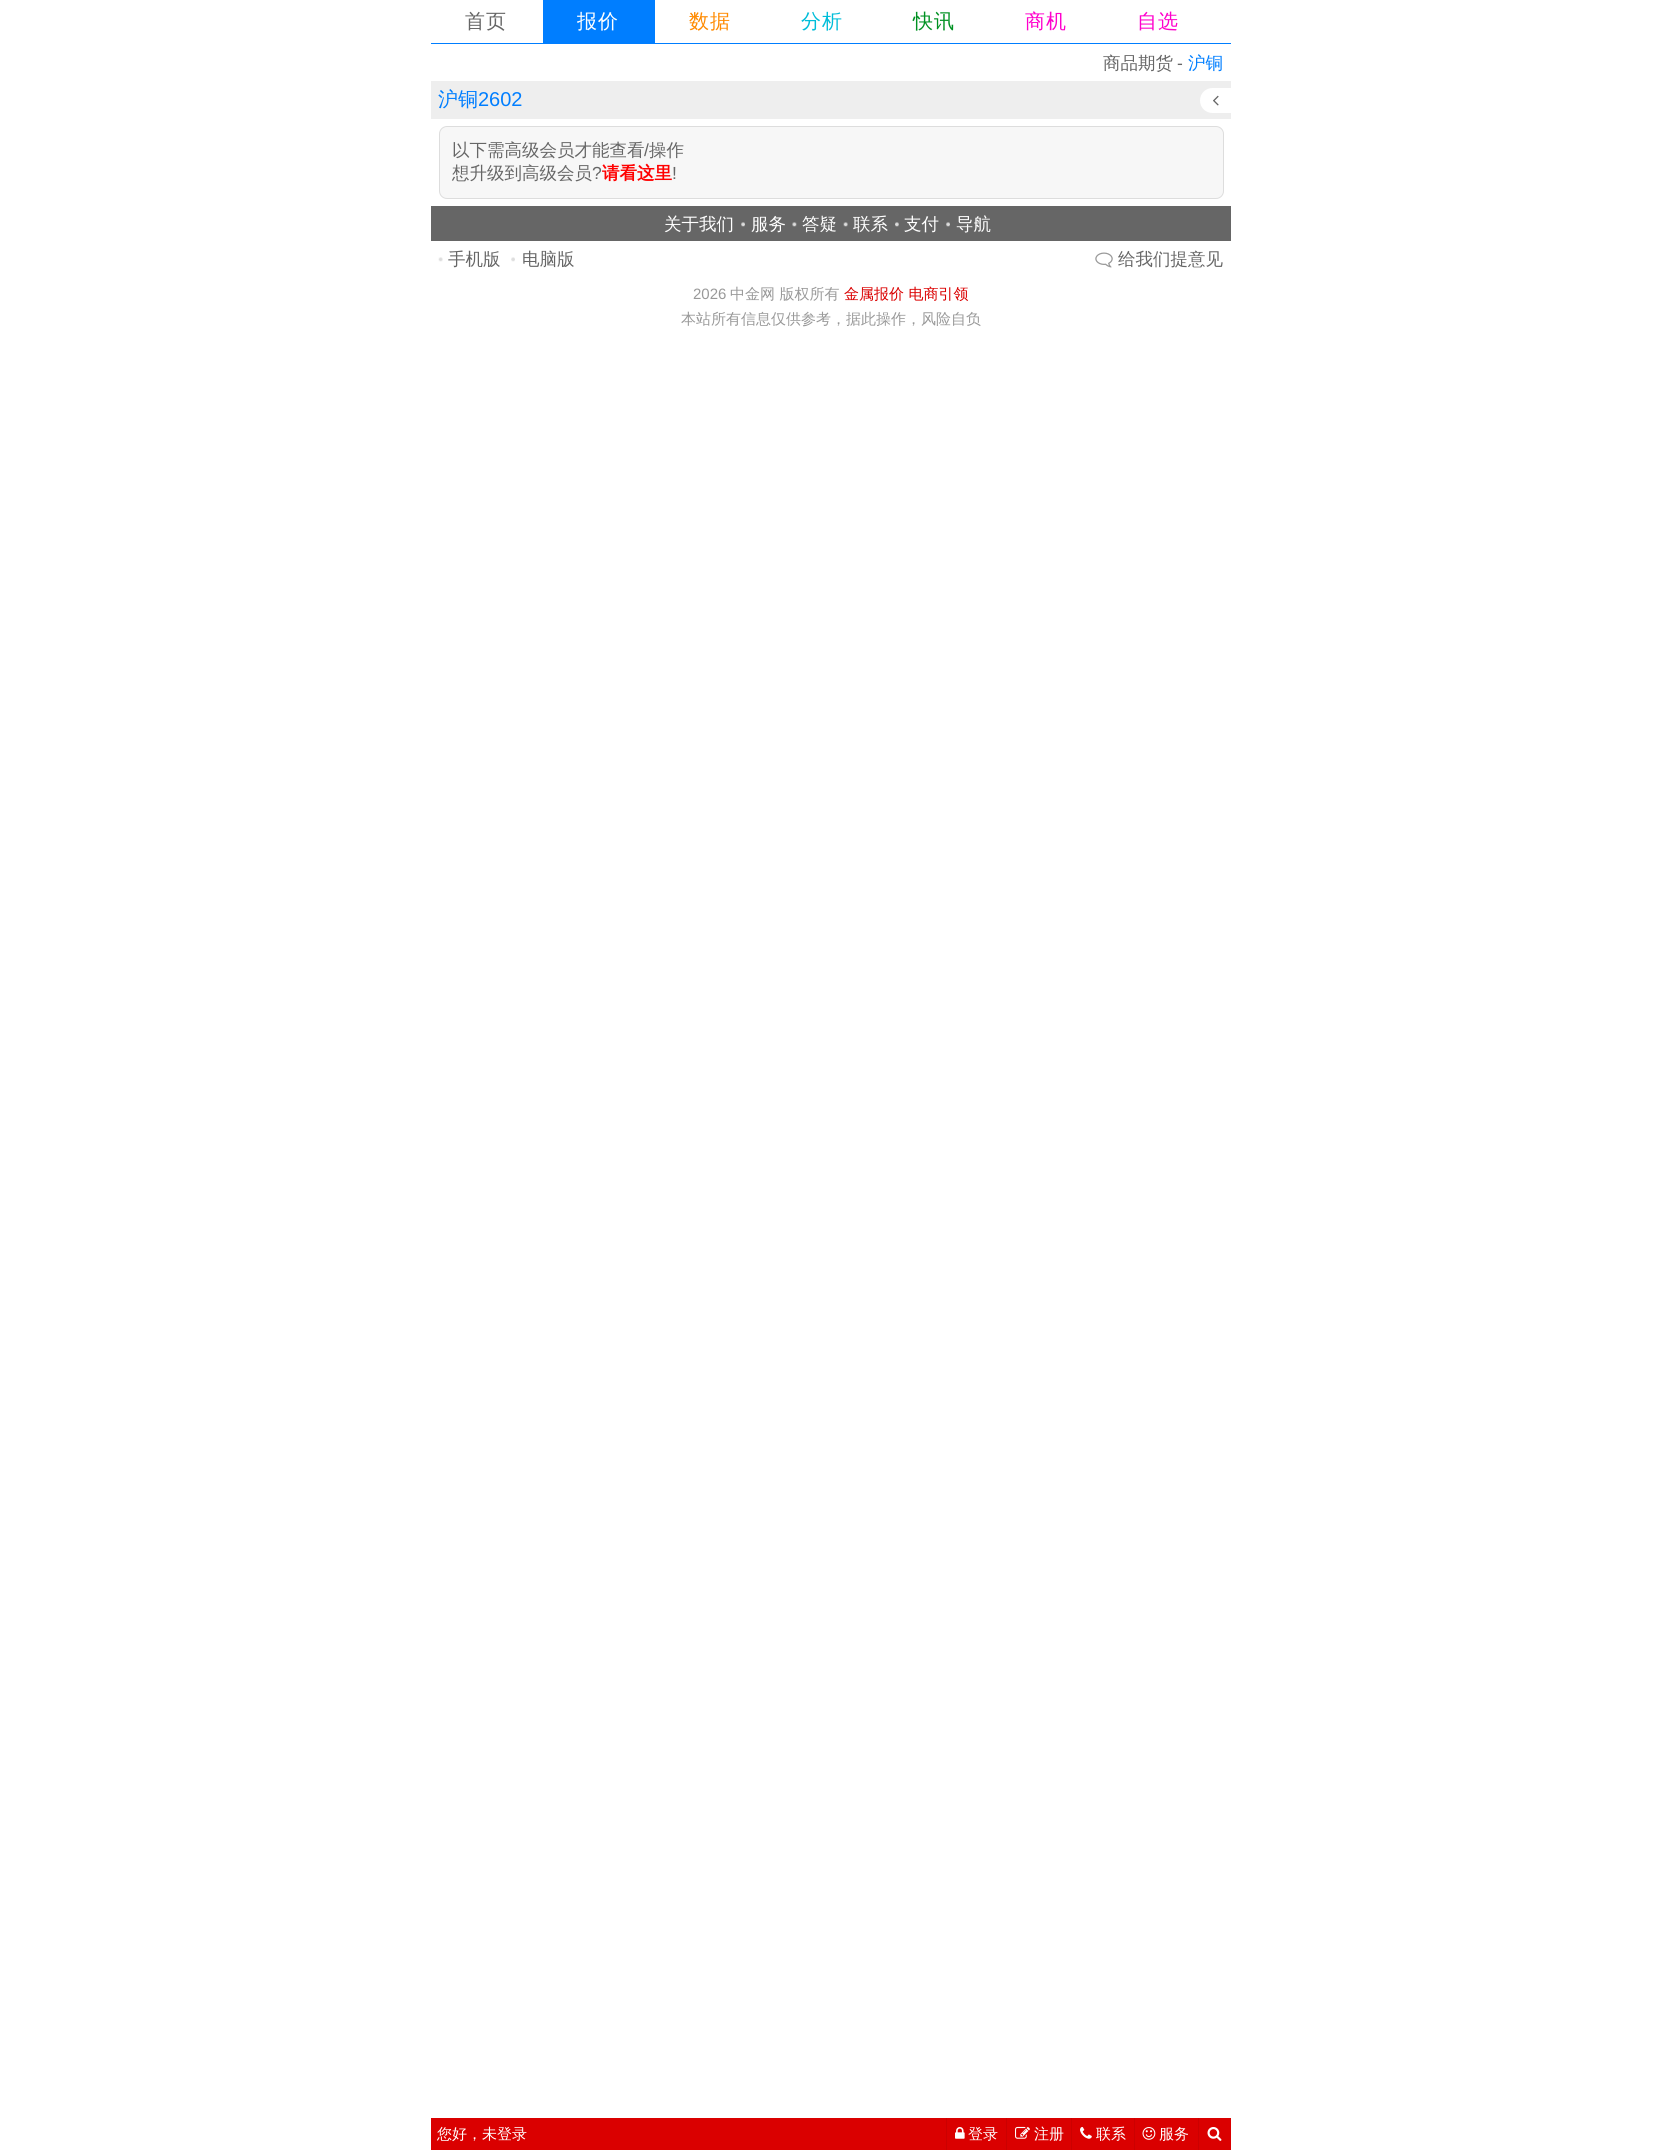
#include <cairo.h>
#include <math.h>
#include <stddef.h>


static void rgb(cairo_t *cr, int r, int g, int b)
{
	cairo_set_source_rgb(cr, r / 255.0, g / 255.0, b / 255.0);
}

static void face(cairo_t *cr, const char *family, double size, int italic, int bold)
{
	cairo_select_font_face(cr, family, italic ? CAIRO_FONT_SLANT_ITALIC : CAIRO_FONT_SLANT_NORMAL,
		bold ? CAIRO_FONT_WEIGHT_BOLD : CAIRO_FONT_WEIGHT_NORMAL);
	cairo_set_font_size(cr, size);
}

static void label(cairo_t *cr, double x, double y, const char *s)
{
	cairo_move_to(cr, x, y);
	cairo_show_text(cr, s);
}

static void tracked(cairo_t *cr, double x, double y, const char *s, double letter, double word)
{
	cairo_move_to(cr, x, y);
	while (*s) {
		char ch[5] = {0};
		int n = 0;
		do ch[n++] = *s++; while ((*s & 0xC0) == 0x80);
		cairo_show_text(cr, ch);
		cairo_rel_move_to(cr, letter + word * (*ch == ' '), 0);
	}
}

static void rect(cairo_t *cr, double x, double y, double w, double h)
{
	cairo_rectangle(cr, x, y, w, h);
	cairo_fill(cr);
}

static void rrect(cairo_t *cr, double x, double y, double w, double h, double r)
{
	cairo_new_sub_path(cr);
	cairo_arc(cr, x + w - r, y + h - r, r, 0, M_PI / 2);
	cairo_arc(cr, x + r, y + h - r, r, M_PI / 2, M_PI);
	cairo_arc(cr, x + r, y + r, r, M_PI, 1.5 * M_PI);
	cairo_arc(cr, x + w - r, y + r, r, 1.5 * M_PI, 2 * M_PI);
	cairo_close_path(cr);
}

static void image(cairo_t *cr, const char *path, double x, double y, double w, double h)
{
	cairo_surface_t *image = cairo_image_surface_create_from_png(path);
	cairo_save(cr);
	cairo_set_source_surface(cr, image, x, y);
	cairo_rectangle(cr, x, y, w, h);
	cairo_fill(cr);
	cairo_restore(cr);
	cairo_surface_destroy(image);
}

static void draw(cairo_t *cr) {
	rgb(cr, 255, 255, 255);
	cairo_paint(cr);
	face(cr, "WenQuanYi Zen Hei Medium", 20, 0, 0);
	rgb(cr, 102, 102, 102);
	tracked(cr, 465, 28, "首页", 1, 0);
	rgb(cr, 0, 126, 255);
	rect(cr, 543, 0, 112, 43);
	rgb(cr, 255, 255, 255);
	tracked(cr, 577, 28, "报价", 1, 0);
	rgb(cr, 255, 138, 0);
	tracked(cr, 689, 28, "数据", 1, 0);
	rgb(cr, 0, 189, 217);
	tracked(cr, 801, 28, "分析", 1, 0);
	rgb(cr, 0, 145, 34);
	tracked(cr, 913, 28, "快讯", 1, 0);
	rgb(cr, 255, 0, 204);
	tracked(cr, 1025, 28, "商机", 1, 0);
	tracked(cr, 1137, 28, "自选", 1, 0);
	rgb(cr, 0, 126, 255);
	rect(cr, 431, 43, 800, 1);
	face(cr, "WenQuanYi Zen Hei Medium", 17.5, 0, 0);
	rgb(cr, 102, 102, 102);
	label(cr, 1103, 69, "商品期货");
	face(cr, "Liberation Sans", 17.5, 0, 0);
	label(cr, 1177, 69, "-");
	face(cr, "WenQuanYi Zen Hei Medium", 17.5, 0, 0);
	rgb(cr, 0, 126, 255);
	label(cr, 1188, 69, "沪铜");
	rgb(cr, 238, 238, 238);
	rect(cr, 431, 81, 800, 38);
	face(cr, "WenQuanYi Zen Hei Medium", 20, 0, 0);
	rgb(cr, 0, 126, 255);
	label(cr, 438, 106, "沪铜");
	face(cr, "Liberation Sans", 20, 0, 0);
	label(cr, 478, 106, "2602");
	rgb(cr, 255, 255, 255);
	cairo_new_path(cr);
	cairo_move_to(cr, 1212.5, 88);
	cairo_line_to(cr, 1231, 88);
	cairo_line_to(cr, 1231, 113);
	cairo_line_to(cr, 1212.5, 113);
	cairo_curve_to(cr, 1205.5, 113, 1200, 107.5, 1200, 100.5);
	cairo_curve_to(cr, 1200, 93.5, 1205.5, 88, 1212.5, 88);
	cairo_close_path(cr);
	cairo_fill(cr);
	image(cr, "image0.png", 1213, 95, 6, 11);
	rgb(cr, 247, 247, 247);
	rrect(cr, 439.5, 126.5, 784, 72, 7.5);
	cairo_fill_preserve(cr);
	rgb(cr, 221, 221, 221);
	cairo_set_line_width(cr, 1);
	cairo_stroke(cr);
	face(cr, "WenQuanYi Zen Hei Medium", 17.5, 0, 0);
	rgb(cr, 102, 102, 102);
	label(cr, 452, 156, "以下需高级会员才能查看");
	face(cr, "Liberation Sans", 17.5, 0, 0);
	label(cr, 644, 156, "/");
	face(cr, "WenQuanYi Zen Hei Medium", 17.5, 0, 0);
	label(cr, 649, 156, "操作");
	label(cr, 452, 179, "想升级到高级会员");
	face(cr, "Liberation Sans", 17.5, 0, 0);
	label(cr, 592, 179, "?");
	face(cr, "WenQuanYi Zen Hei", 17.5, 0, 1);
	rgb(cr, 255, 0, 0);
	label(cr, 602, 179, "请看这里");
	face(cr, "Liberation Sans", 17.5, 0, 0);
	rgb(cr, 102, 102, 102);
	label(cr, 672, 179, "!");
	rect(cr, 431, 206, 800, 35);
	face(cr, "WenQuanYi Zen Hei Medium", 17.5, 0, 0);
	rgb(cr, 255, 255, 255);
	label(cr, 664, 230, "关于我们");
	image(cr, "image1.png", 741, 222, 4, 5);
	label(cr, 751, 230, "服务");
	image(cr, "image2.png", 792, 222, 5, 5);
	label(cr, 802, 230, "答疑");
	image(cr, "image3.png", 843, 222, 5, 5);
	label(cr, 853, 230, "联系");
	image(cr, "image4.png", 895, 222, 4, 5);
	label(cr, 904, 230, "支付");
	image(cr, "image1.png", 946, 222, 4, 5);
	label(cr, 956, 230, "导航");
	image(cr, "image5.png", 438, 257, 5, 5);
	rgb(cr, 102, 102, 102);
	label(cr, 448, 265, "手机版");
	image(cr, "image6.png", 511, 257, 4, 5);
	label(cr, 522, 265, "电脑版");
	image(cr, "image7.png", 1095, 252, 18, 16);
	label(cr, 1118, 265, "给我们提意见");
	face(cr, "Liberation Sans", 15, 0, 0);
	rgb(cr, 153, 153, 153);
	label(cr, 693, 299, "2026");
	face(cr, "WenQuanYi Zen Hei Medium", 15, 0, 0);
	label(cr, 730, 299, "中金网 版权所有");
	rgb(cr, 218, 0, 0);
	label(cr, 844, 299, "金属报价 电商引领");
	rgb(cr, 153, 153, 153);
	label(cr, 681, 324, "本站所有信息仅供参考，据此操作，风险自负");
	rgb(cr, 218, 0, 0);
	rect(cr, 431, 2118, 800, 32);
	rgb(cr, 255, 255, 255);
	label(cr, 437, 2139, "您好，未登录");
	rgb(cr, 204, 0, 0);
	rect(cr, 946, 2118, 1, 32);
	image(cr, "image8.png", 955, 2127, 10, 12);
	rgb(cr, 255, 255, 255);
	label(cr, 968, 2139, "登录");
	rgb(cr, 204, 0, 0);
	rect(cr, 1006, 2118, 1, 32);
	image(cr, "image9.png", 1015, 2126, 15, 13);
	rgb(cr, 255, 255, 255);
	label(cr, 1034, 2139, "注册");
	rgb(cr, 204, 0, 0);
	rect(cr, 1071, 2118, 1, 32);
	image(cr, "image10.png", 1080, 2127, 12, 12);
	rgb(cr, 255, 255, 255);
	label(cr, 1096, 2139, "联系");
	rgb(cr, 204, 0, 0);
	rect(cr, 1134, 2118, 1, 32);
	image(cr, "image11.png", 1142, 2127, 14, 13);
	rgb(cr, 255, 255, 255);
	label(cr, 1159, 2139, "服务");
	rgb(cr, 204, 0, 0);
	rect(cr, 1198, 2118, 1, 32);
	image(cr, "image12.png", 1207, 2127, 15, 14);
}

int main(void) {
	cairo_surface_t *surface = cairo_image_surface_create(CAIRO_FORMAT_RGB24, 1661, 2150);
	cairo_t *cr = cairo_create(surface);
	cairo_font_options_t *options = cairo_font_options_create();
	cairo_font_options_set_hint_metrics(options, CAIRO_HINT_METRICS_OFF);
	cairo_font_options_set_hint_style(options, CAIRO_HINT_STYLE_NONE);
	cairo_set_font_options(cr, options);
	cairo_set_miter_limit(cr, 4);
	draw(cr);
	cairo_surface_write_to_png(surface, "render.png");
	cairo_font_options_destroy(options);
	cairo_destroy(cr);
	cairo_surface_destroy(surface);
	return 0;
}
